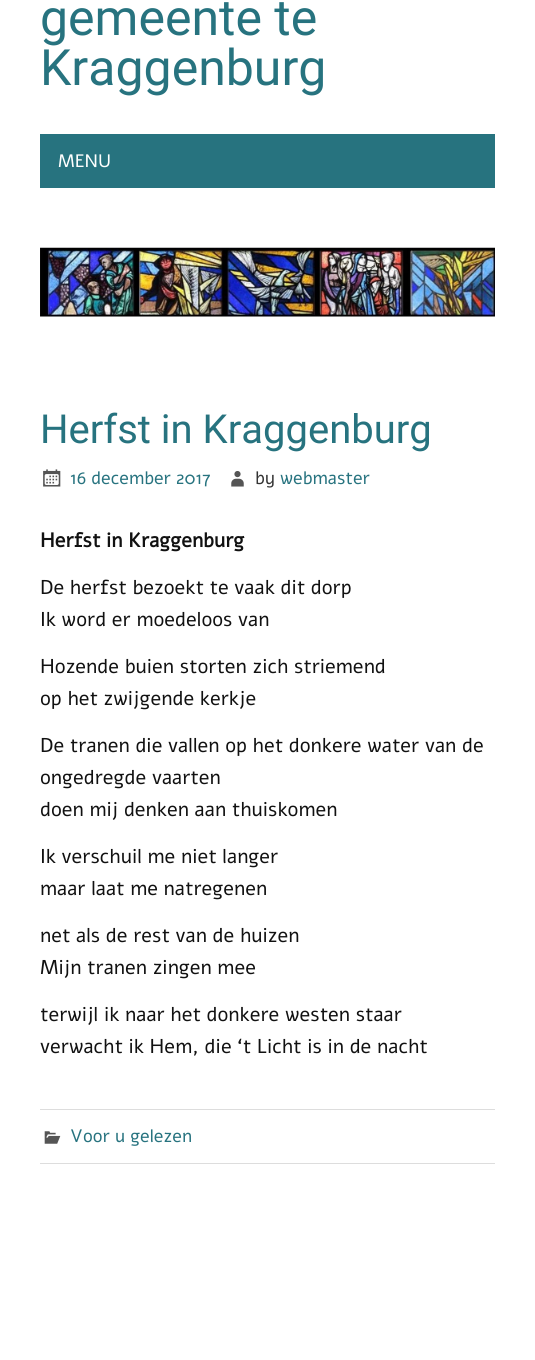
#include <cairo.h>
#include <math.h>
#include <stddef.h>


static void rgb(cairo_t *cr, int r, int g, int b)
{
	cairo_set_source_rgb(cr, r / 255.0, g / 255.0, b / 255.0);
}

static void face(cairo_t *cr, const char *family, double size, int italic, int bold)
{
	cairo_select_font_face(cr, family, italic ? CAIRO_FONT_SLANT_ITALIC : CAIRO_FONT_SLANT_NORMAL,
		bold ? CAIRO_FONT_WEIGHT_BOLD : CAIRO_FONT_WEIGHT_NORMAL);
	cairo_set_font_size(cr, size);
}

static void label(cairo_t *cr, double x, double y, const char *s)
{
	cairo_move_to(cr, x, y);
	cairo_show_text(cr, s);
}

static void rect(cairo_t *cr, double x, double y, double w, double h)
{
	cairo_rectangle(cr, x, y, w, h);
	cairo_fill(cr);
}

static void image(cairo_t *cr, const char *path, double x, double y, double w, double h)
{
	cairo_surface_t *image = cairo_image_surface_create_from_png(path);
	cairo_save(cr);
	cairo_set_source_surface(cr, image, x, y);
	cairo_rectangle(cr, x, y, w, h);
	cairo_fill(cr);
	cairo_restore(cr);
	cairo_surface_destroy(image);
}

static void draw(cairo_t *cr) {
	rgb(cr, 255, 255, 255);
	cairo_paint(cr);
	face(cr, "Roboto", 50, 0, 0);
	rgb(cr, 39, 115, 127);
	label(cr, 40, 35, "gemeente te");
	label(cr, 40, 85, "Kraggenburg");
	rect(cr, 40, 134, 455, 54);
	face(cr, "Alef", 18, 0, 0);
	rgb(cr, 255, 255, 255);
	label(cr, 58, 167, "MENU");
	image(cr, "image0.png", 40, 247, 455, 70);
	face(cr, "Roboto", 40, 0, 0);
	rgb(cr, 39, 115, 127);
	label(cr, 40, 443, "Herfst in Kraggenburg");
	image(cr, "image1.png", 43, 469, 18, 18);
	face(cr, "Alef", 18, 0, 0);
	label(cr, 70, 484, "16 december 2017");
	image(cr, "image2.png", 231, 471, 13, 16);
	rgb(cr, 51, 51, 51);
	label(cr, 255, 484, "by");
	rgb(cr, 39, 115, 127);
	label(cr, 280, 484, "webmaster");
	face(cr, "Alef", 20, 0, 1);
	rgb(cr, 17, 17, 17);
	label(cr, 40, 547, "Herfst in Kraggenburg");
	face(cr, "Alef", 20, 0, 0);
	label(cr, 40, 594, "De herfst bezoekt te vaak dit dorp");
	label(cr, 40, 626, "Ik word er moedeloos van");
	label(cr, 40, 673, "Hozende buien storten zich striemend");
	label(cr, 40, 705, "op het zwijgende kerkje");
	label(cr, 40, 752, "De tranen die vallen op het donkere water van de");
	label(cr, 40, 784, "ongedregde vaarten");
	label(cr, 40, 816, "doen mij denken aan thuiskomen");
	label(cr, 40, 863, "Ik verschuil me niet langer");
	label(cr, 40, 895, "maar laat me natregenen");
	label(cr, 40, 942, "net als de rest van de huizen");
	label(cr, 40, 974, "Mijn tranen zingen mee");
	label(cr, 40, 1021, "terwijl ik naar het donkere westen staar");
	label(cr, 40, 1053, "verwacht ik Hem, die ‘t Licht is in de nacht");
	rgb(cr, 221, 221, 221);
	rect(cr, 40, 1109, 455, 1);
	rect(cr, 40, 1163, 455, 1);
	image(cr, "image3.png", 44, 1131, 17, 13);
	face(cr, "Alef", 18, 0, 0);
	rgb(cr, 39, 115, 127);
	label(cr, 70, 1142, "Voor u gelezen");
}

int main(void) {
	cairo_surface_t *surface = cairo_image_surface_create(CAIRO_FORMAT_RGB24, 535, 1360);
	cairo_t *cr = cairo_create(surface);
	cairo_font_options_t *options = cairo_font_options_create();
	cairo_font_options_set_hint_metrics(options, CAIRO_HINT_METRICS_OFF);
	cairo_font_options_set_hint_style(options, CAIRO_HINT_STYLE_NONE);
	cairo_set_font_options(cr, options);
	cairo_set_miter_limit(cr, 4);
	draw(cr);
	cairo_surface_write_to_png(surface, "render.png");
	cairo_font_options_destroy(options);
	cairo_destroy(cr);
	cairo_surface_destroy(surface);
	return 0;
}
